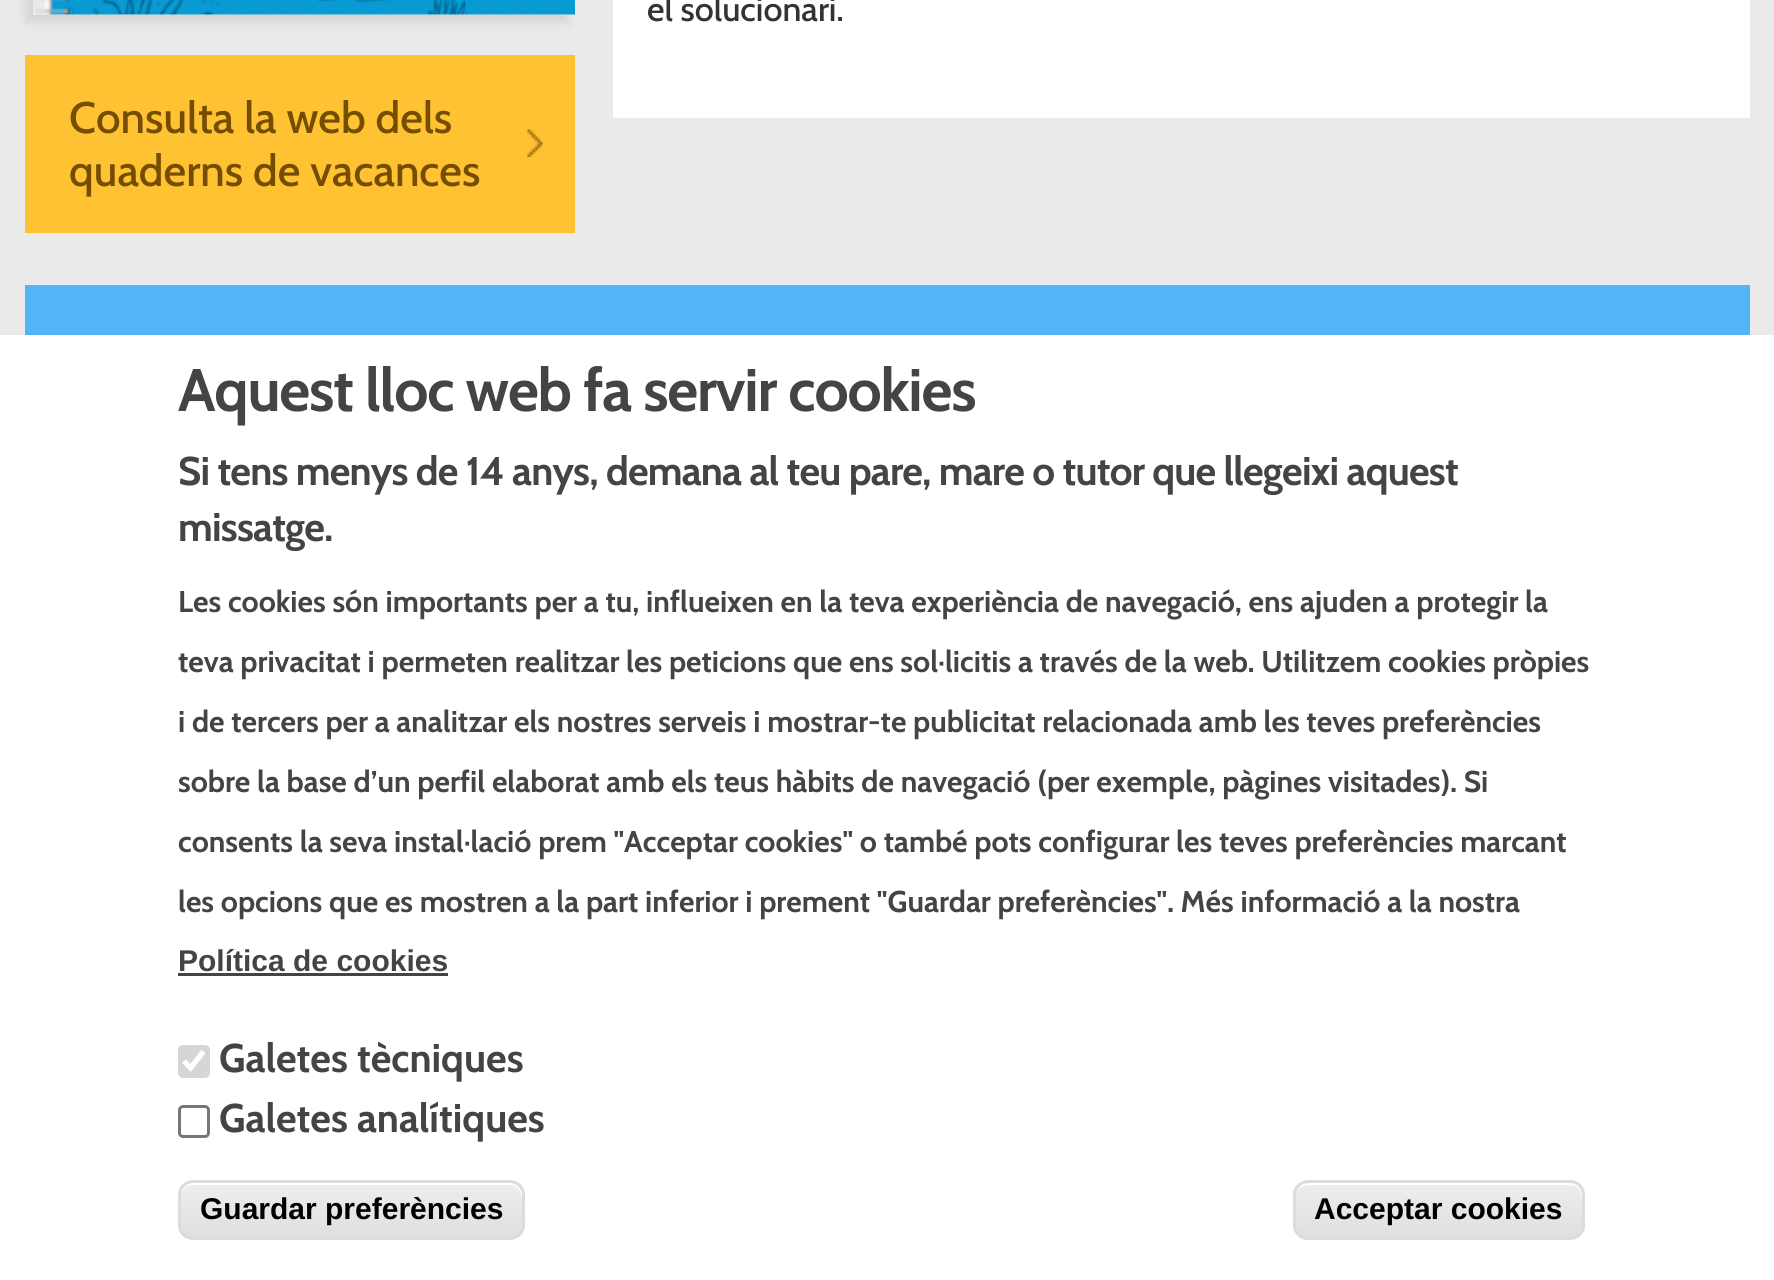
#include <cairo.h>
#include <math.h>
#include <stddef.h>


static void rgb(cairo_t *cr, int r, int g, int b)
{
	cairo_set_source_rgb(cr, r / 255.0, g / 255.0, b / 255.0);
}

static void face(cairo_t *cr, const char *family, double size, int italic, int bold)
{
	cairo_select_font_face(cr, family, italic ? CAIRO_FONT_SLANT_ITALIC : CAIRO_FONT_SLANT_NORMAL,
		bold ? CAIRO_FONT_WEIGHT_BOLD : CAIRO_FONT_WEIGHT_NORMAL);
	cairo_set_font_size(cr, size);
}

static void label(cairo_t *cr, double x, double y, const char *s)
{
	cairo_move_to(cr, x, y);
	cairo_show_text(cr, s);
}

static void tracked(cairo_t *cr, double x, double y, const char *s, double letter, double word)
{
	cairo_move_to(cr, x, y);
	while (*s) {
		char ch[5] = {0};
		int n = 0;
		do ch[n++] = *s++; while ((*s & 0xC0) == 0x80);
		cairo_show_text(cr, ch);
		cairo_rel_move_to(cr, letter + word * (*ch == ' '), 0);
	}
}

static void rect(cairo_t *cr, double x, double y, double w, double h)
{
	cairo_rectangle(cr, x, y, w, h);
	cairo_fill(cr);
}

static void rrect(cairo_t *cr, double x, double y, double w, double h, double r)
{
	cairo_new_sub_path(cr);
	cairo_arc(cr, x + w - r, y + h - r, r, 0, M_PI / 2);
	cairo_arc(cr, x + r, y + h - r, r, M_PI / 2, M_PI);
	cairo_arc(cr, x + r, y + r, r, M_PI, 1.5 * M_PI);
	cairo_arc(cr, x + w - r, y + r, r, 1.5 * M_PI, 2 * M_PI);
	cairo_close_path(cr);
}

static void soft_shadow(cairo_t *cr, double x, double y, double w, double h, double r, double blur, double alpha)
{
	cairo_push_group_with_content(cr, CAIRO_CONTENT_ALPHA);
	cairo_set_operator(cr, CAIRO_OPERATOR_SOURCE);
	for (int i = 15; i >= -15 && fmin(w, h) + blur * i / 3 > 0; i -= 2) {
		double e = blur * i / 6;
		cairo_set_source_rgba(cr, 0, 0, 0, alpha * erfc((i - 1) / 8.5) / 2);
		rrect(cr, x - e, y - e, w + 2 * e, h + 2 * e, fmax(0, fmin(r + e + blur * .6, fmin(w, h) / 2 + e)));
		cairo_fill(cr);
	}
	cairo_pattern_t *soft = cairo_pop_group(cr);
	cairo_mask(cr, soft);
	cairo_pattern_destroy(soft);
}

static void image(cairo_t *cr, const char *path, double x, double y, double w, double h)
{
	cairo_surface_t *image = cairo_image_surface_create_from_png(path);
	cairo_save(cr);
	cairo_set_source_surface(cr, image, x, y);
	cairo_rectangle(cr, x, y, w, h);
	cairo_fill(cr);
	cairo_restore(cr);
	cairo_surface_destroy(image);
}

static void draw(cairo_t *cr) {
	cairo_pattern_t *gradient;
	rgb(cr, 234, 234, 234);
	cairo_paint(cr);
	rgb(cr, 255, 255, 255);
	rect(cr, 613, 0, 1137, 118);
	face(cr, "Cabin Medium", 34, 0, 0);
	rgb(cr, 51, 51, 51);
	label(cr, 647, 21, "el solucionari.");
	cairo_save(cr);
	cairo_set_fill_rule(cr, CAIRO_FILL_RULE_EVEN_ODD);
	cairo_new_path(cr);
	cairo_move_to(cr, 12, 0);
	cairo_line_to(cr, 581, 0);
	cairo_line_to(cr, 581, 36);
	cairo_line_to(cr, 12, 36);
	cairo_close_path(cr);
	cairo_move_to(cr, 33, -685);
	cairo_line_to(cr, 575, -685);
	cairo_line_to(cr, 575, 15);
	cairo_line_to(cr, 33, 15);
	cairo_close_path(cr);
	cairo_clip(cr);
	rgb(cr, 213, 213, 213);
	soft_shadow(cr, 25, -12, 543, 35, 0, 4, 1);
	cairo_restore(cr);
	image(cr, "image0.png", 35, 0, 540, 15);
	rgb(cr, 255, 194, 51);
	rect(cr, 25, 55, 550, 178);
	image(cr, "image1.png", 527, 129, 16, 28);
	face(cr, "Cabin Medium", 44, 0, 0);
	rgb(cr, 116, 77, 0);
	label(cr, 69, 133, "Consulta la web dels");
	label(cr, 69, 186, "quaderns de vacances");
	rgb(cr, 83, 181, 245);
	rect(cr, 25, 285, 1725, 50);
	rgb(cr, 255, 255, 255);
	rect(cr, 0, 335, 1774, 945);
	face(cr, "Cabin", 60, 0, 1);
	rgb(cr, 68, 68, 68);
	tracked(cr, 178, 411, "Aquest lloc web fa servir cookies", -1.2, 0);
	face(cr, "Cabin", 40, 0, 1);
	tracked(cr, 178, 485, "Si tens menys de 14 anys, demana al teu pare, mare o tutor que llegeixi aquest", -0.8, 0);
	tracked(cr, 178, 541, "missatge.", -0.8, 0);
	face(cr, "Cabin", 30, 0, 1);
	label(cr, 178, 612, "Les cookies són importants per a tu, influeixen en la teva experiència de navegació, ens ajuden a protegir la");
	label(cr, 178, 672, "teva privacitat i permeten realitzar les peticions que ens sol·licitis a través de la web. Utilitzem cookies pròpies");
	label(cr, 178, 732, "i de tercers per a analitzar els nostres serveis i mostrar-te publicitat relacionada amb les teves preferències");
	label(cr, 178, 792, "sobre la base d’un perfil elaborat amb els teus hàbits de navegació (per exemple, pàgines visitades). Si");
	label(cr, 178, 852, "consents la seva instal·lació prem \"Acceptar cookies\" o també pots configurar les teves preferències marcant");
	label(cr, 178, 912, "les opcions que es mostren a la part inferior i prement \"Guardar preferències\". Més informació a la nostra");
	face(cr, "Liberation Sans", 30, 0, 1);
	label(cr, 178, 971, "Política de cookies");
	rect(cr, 178, 973, 270, 3);
	rgb(cr, 214, 214, 214);
	rrect(cr, 178, 1045, 32, 33, 5);
	cairo_fill(cr);
	cairo_new_path(cr);
	cairo_move_to(cr, 184, 1061);
	cairo_line_to(cr, 190.5, 1068);
	cairo_line_to(cr, 203.5, 1051.5);
	rgb(cr, 255, 255, 255);
	cairo_set_line_width(cr, 5.2);
	cairo_stroke(cr);
	face(cr, "Cabin", 40, 0, 1);
	rgb(cr, 68, 68, 68);
	label(cr, 219, 1072, "Galetes tècniques");
	rrect(cr, 179.5, 1106.5, 29, 30, 3.5);
	rgb(cr, 118, 118, 118);
	cairo_set_line_width(cr, 3);
	cairo_stroke(cr);
	rgb(cr, 68, 68, 68);
	label(cr, 219, 1132, "Galetes analítiques");
	cairo_save(cr);
	rrect(cr, 178, 1180, 347, 60, 15);
	cairo_clip(cr);
	gradient = cairo_pattern_create_linear(351, 1183, 351, 1238);
	cairo_pattern_add_color_stop_rgba(gradient, 0.05, 0.929, 0.929, 0.929, 1);
	cairo_pattern_add_color_stop_rgba(gradient, 1, 0.875, 0.875, 0.875, 1);
	cairo_set_source(cr, gradient);
	cairo_pattern_destroy(gradient);
	rect(cr, 178, 1183, 347, 55);
	cairo_restore(cr);
	rgb(cr, 255, 255, 255);
	cairo_new_path(cr);
	cairo_move_to(cr, 192, 1185);
	cairo_line_to(cr, 510, 1185);
	cairo_curve_to(cr, 523, 1185, 522, 1199, 522, 1208);
	cairo_line_to(cr, 522, 1231);
	cairo_curve_to(cr, 523, 1229, 523, 1227, 523, 1225);
	cairo_line_to(cr, 523, 1196);
	cairo_curve_to(cr, 523, 1189, 517, 1183, 510, 1183);
	cairo_line_to(cr, 193, 1183);
	cairo_curve_to(cr, 186, 1183, 180, 1189, 180, 1196);
	cairo_line_to(cr, 180, 1198);
	cairo_curve_to(cr, 180, 1191, 186, 1185, 192, 1185);
	cairo_close_path(cr);
	cairo_fill(cr);
	rrect(cr, 179.5, 1181.5, 344, 57, 13.5);
	rgb(cr, 220, 220, 220);
	cairo_stroke(cr);
	face(cr, "Liberation Sans", 30, 0, 1);
	rgb(cr, 0, 0, 0);
	label(cr, 200, 1219, "Guardar preferències");
	cairo_save(cr);
	rrect(cr, 1293, 1180, 292, 60, 15);
	cairo_clip(cr);
	gradient = cairo_pattern_create_linear(1439, 1183, 1439, 1238);
	cairo_pattern_add_color_stop_rgba(gradient, 0.05, 0.929, 0.929, 0.929, 1);
	cairo_pattern_add_color_stop_rgba(gradient, 1, 0.875, 0.875, 0.875, 1);
	cairo_set_source(cr, gradient);
	cairo_pattern_destroy(gradient);
	rect(cr, 1293, 1183, 292, 55);
	cairo_restore(cr);
	rgb(cr, 255, 255, 255);
	cairo_new_path(cr);
	cairo_move_to(cr, 1308, 1185);
	cairo_line_to(cr, 1570, 1185);
	cairo_curve_to(cr, 1583, 1185, 1582, 1199, 1582, 1208);
	cairo_line_to(cr, 1582, 1231);
	cairo_curve_to(cr, 1583, 1229, 1583, 1227, 1583, 1225);
	cairo_line_to(cr, 1583, 1196);
	cairo_curve_to(cr, 1583, 1189, 1577, 1183, 1570, 1183);
	cairo_line_to(cr, 1308, 1183);
	cairo_curve_to(cr, 1301, 1183, 1295, 1189, 1295, 1196);
	cairo_line_to(cr, 1295, 1198);
	cairo_curve_to(cr, 1295, 1191, 1301, 1185, 1308, 1185);
	cairo_close_path(cr);
	cairo_fill(cr);
	rrect(cr, 1294.5, 1181.5, 289, 57, 13.5);
	rgb(cr, 220, 220, 220);
	cairo_stroke(cr);
	rgb(cr, 0, 0, 0);
	label(cr, 1314, 1219, "Acceptar cookies");
}

int main(void) {
	cairo_surface_t *surface = cairo_image_surface_create(CAIRO_FORMAT_RGB24, 1774, 1280);
	cairo_t *cr = cairo_create(surface);
	cairo_font_options_t *options = cairo_font_options_create();
	cairo_font_options_set_hint_metrics(options, CAIRO_HINT_METRICS_OFF);
	cairo_font_options_set_hint_style(options, CAIRO_HINT_STYLE_NONE);
	cairo_set_font_options(cr, options);
	cairo_set_miter_limit(cr, 4);
	draw(cr);
	cairo_surface_write_to_png(surface, "render.png");
	cairo_font_options_destroy(options);
	cairo_destroy(cr);
	cairo_surface_destroy(surface);
	return 0;
}
